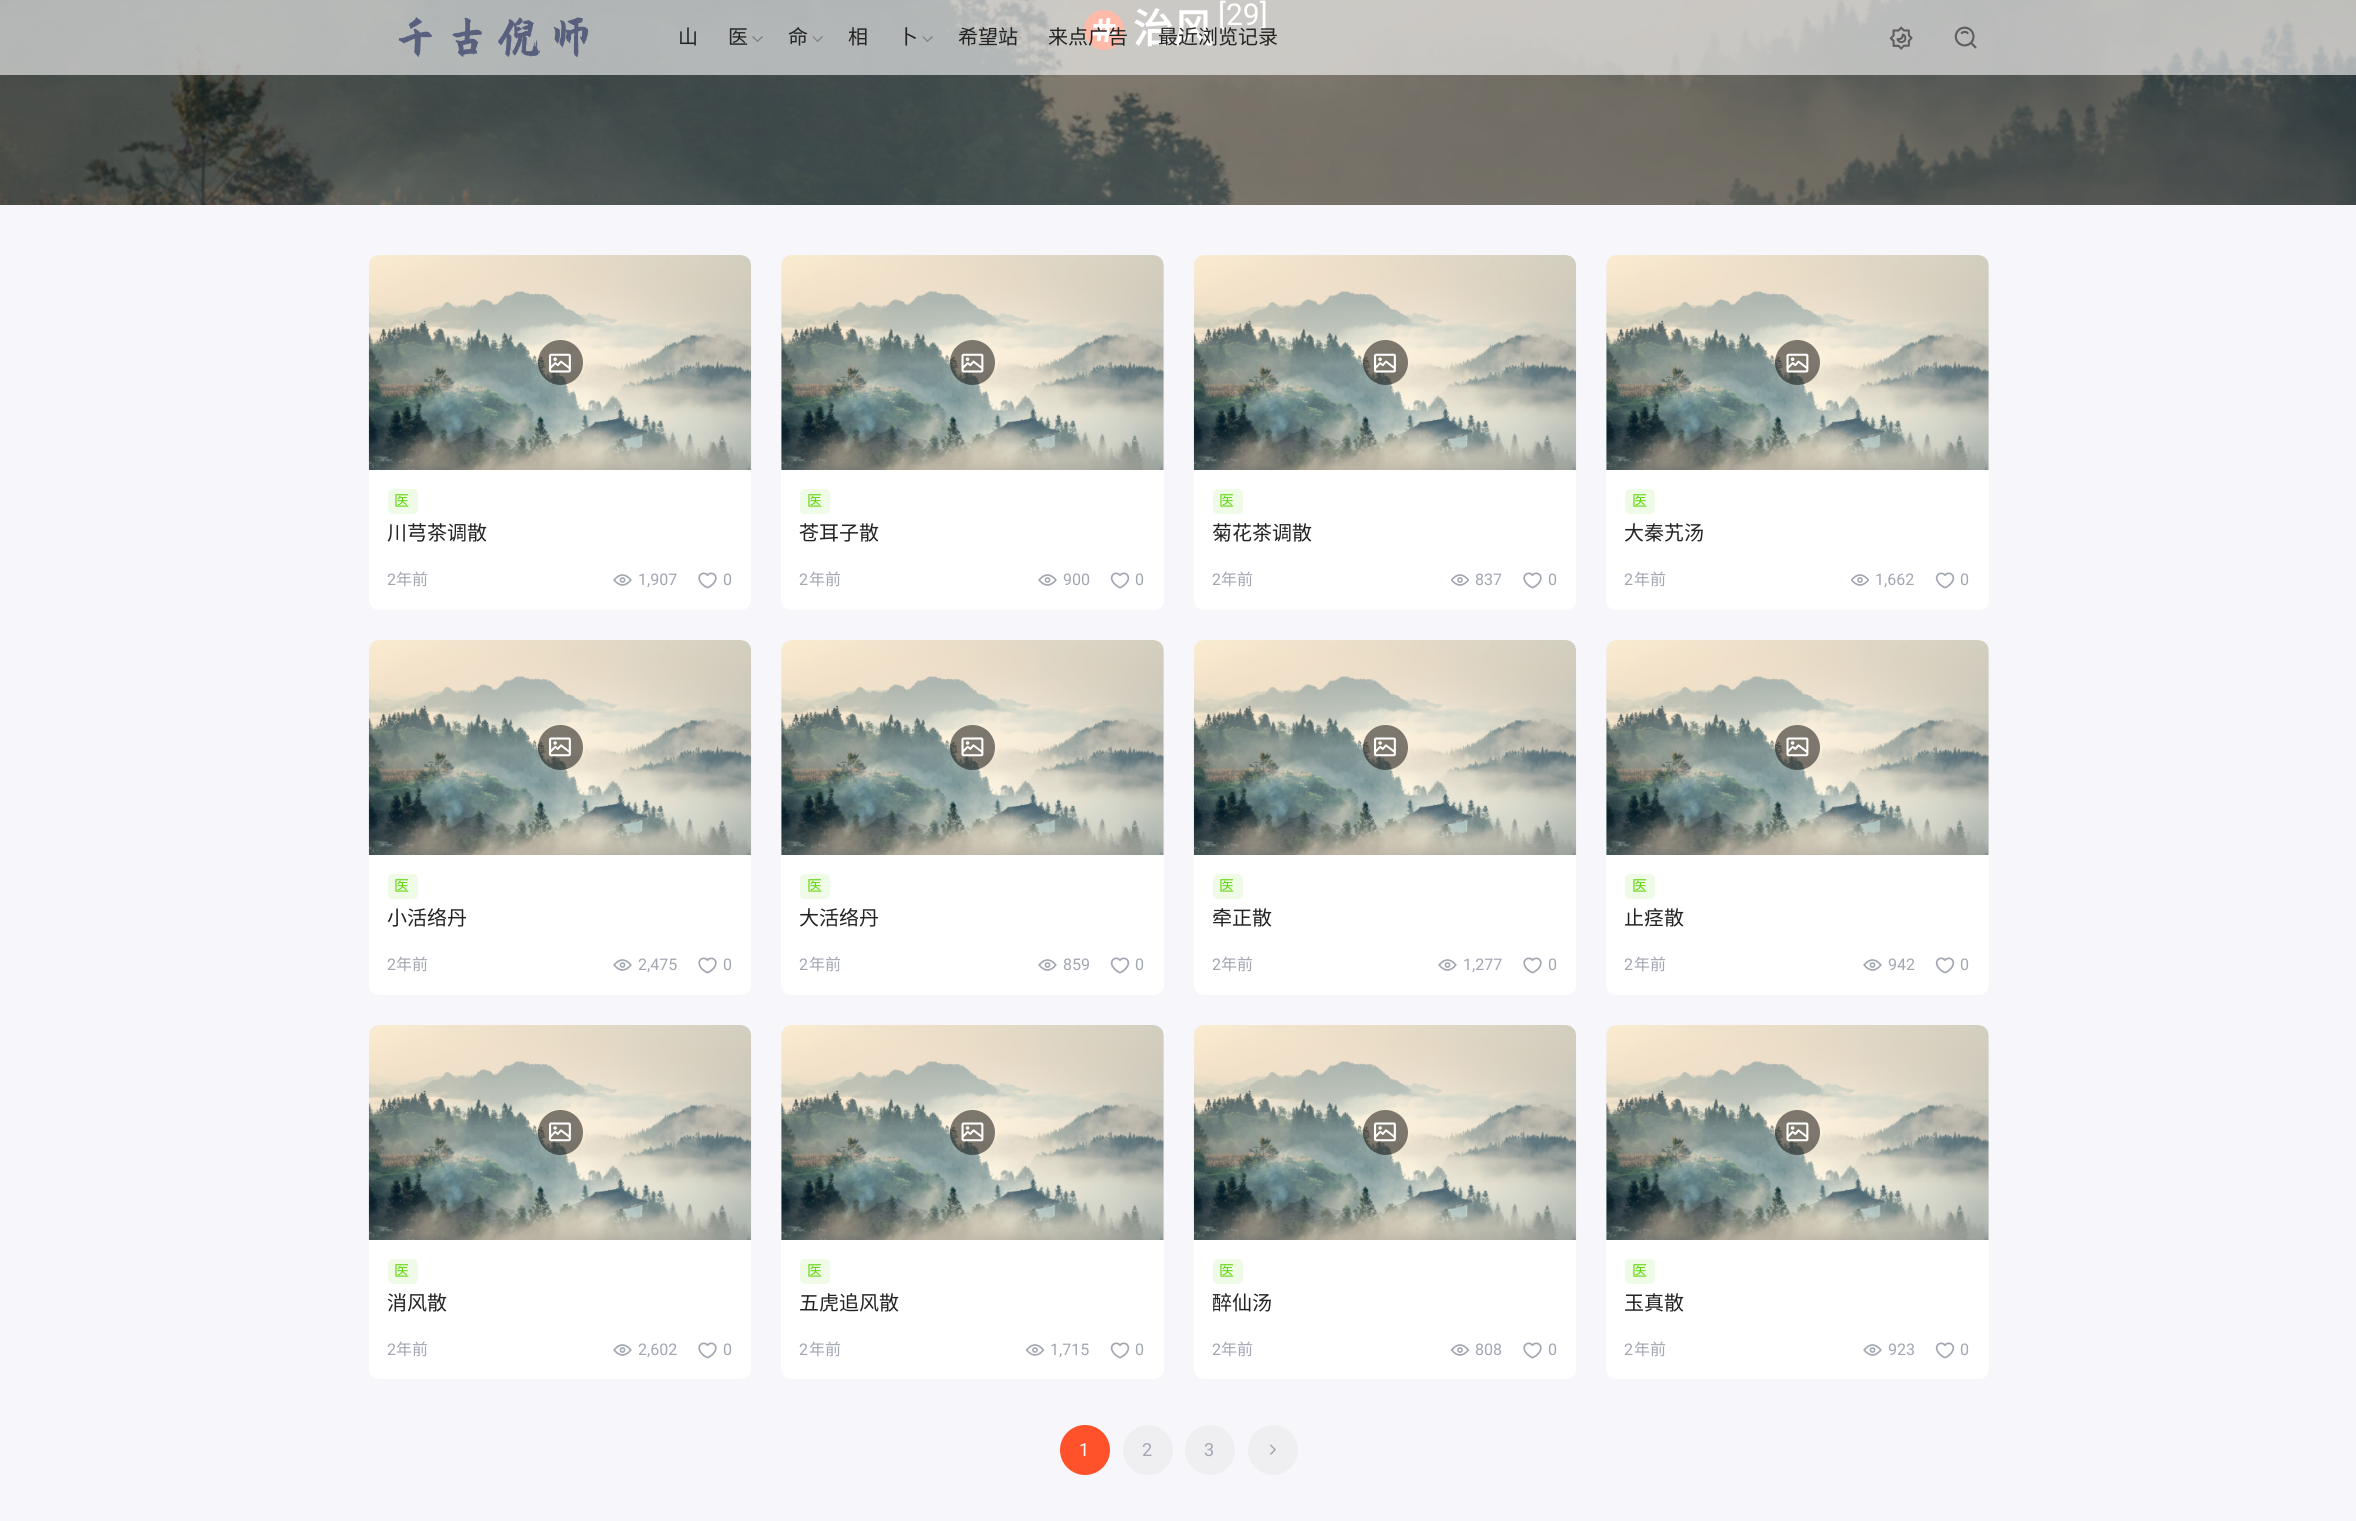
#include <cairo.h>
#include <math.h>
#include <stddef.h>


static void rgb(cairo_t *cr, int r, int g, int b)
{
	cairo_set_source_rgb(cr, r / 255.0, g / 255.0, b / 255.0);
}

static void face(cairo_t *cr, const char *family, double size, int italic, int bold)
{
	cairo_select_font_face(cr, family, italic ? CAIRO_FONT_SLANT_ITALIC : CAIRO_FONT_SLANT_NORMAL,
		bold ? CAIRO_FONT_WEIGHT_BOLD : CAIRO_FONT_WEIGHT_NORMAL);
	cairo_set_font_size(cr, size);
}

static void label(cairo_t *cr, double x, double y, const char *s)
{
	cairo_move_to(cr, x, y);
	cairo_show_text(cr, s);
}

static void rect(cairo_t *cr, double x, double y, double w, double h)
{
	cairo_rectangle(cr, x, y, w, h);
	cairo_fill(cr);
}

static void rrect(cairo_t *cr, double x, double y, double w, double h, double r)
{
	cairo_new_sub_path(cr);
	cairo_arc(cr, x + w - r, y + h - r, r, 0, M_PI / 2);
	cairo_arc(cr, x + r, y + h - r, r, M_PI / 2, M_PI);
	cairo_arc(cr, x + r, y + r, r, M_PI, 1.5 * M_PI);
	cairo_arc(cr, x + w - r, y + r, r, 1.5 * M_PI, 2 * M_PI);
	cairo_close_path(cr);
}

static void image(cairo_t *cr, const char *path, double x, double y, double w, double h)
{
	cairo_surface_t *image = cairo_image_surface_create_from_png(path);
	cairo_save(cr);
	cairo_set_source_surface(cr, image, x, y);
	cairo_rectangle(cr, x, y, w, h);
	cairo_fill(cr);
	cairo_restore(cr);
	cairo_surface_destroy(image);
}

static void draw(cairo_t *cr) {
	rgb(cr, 247, 247, 251);
	cairo_paint(cr);
	image(cr, "image0.png", 0, 0, 2356, 205);
	image(cr, "image1.png", 1084, 10, 40, 40);
	face(cr, "Noto Sans CJK SC", 40, 0, 1);
	rgb(cr, 255, 255, 255);
	label(cr, 1133, 43, "治风");
	face(cr, "Roboto", 30, 0, 0);
	label(cr, 1218, 25, "[29]");
	cairo_set_source_rgba(cr, 1, 1, 1, 0.6);
	rect(cr, 0, 0, 2356, 75);
	image(cr, "image2.png", 398, 17, 191, 41);
	face(cr, "Noto Sans CJK SC", 20, 0, 0);
	rgb(cr, 35, 35, 35);
	label(cr, 678, 44, "山");
	label(cr, 728, 44, "医");
	rgb(cr, 125, 128, 128);
	cairo_new_path(cr);
	cairo_move_to(cr, 756.5, 41.5);
	cairo_line_to(cr, 762, 36);
	cairo_line_to(cr, 763, 37);
	cairo_line_to(cr, 757.5, 42);
	cairo_close_path(cr);
	cairo_fill(cr);
	cairo_new_path(cr);
	cairo_move_to(cr, 752, 37);
	cairo_line_to(cr, 753, 36);
	cairo_line_to(cr, 758.5, 41.5);
	cairo_line_to(cr, 757.5, 42);
	cairo_close_path(cr);
	cairo_fill(cr);
	rgb(cr, 35, 35, 35);
	label(cr, 788, 44, "命");
	rgb(cr, 126, 128, 128);
	cairo_new_path(cr);
	cairo_move_to(cr, 816.5, 41.5);
	cairo_line_to(cr, 822, 36);
	cairo_line_to(cr, 823, 37);
	cairo_line_to(cr, 817.5, 42);
	cairo_close_path(cr);
	cairo_fill(cr);
	cairo_new_path(cr);
	cairo_move_to(cr, 812.5, 37);
	cairo_line_to(cr, 813, 36);
	cairo_line_to(cr, 818.5, 41.5);
	cairo_line_to(cr, 817.5, 42);
	cairo_close_path(cr);
	cairo_fill(cr);
	rgb(cr, 35, 35, 35);
	label(cr, 848, 44, "相");
	label(cr, 898, 44, "卜");
	rgb(cr, 125, 128, 128);
	cairo_new_path(cr);
	cairo_move_to(cr, 926.5, 41.5);
	cairo_line_to(cr, 932, 36);
	cairo_line_to(cr, 933, 37);
	cairo_line_to(cr, 927.5, 42);
	cairo_close_path(cr);
	cairo_fill(cr);
	rgb(cr, 126, 128, 128);
	cairo_new_path(cr);
	cairo_move_to(cr, 922.5, 37);
	cairo_line_to(cr, 923, 36);
	cairo_line_to(cr, 928.5, 41.5);
	cairo_line_to(cr, 927.5, 42);
	cairo_close_path(cr);
	cairo_fill(cr);
	rgb(cr, 35, 35, 35);
	label(cr, 958, 44, "希望站");
	label(cr, 1048, 44, "来点广告");
	label(cr, 1158, 44, "最近浏览记录");
	image(cr, "image3.png", 1889, 26, 24, 24);
	image(cr, "image4.png", 1954, 26, 23, 23);
	rgb(cr, 255, 255, 255);
	rrect(cr, 369, 255, 382, 355, 10);
	cairo_fill(cr);
	cairo_set_source_rgba(cr, 0.471, 0.471, 0.471, 0.1);
	cairo_new_path(cr);
	cairo_move_to(cr, 379, 255);
	cairo_line_to(cr, 741, 255);
	cairo_curve_to(cr, 746.5, 255, 751, 259.5, 751, 265);
	cairo_line_to(cr, 751, 470);
	cairo_line_to(cr, 369, 470);
	cairo_line_to(cr, 369, 265);
	cairo_curve_to(cr, 369, 259.5, 373.5, 255, 379, 255);
	cairo_close_path(cr);
	cairo_fill(cr);
	image(cr, "image5.png", 368, 255, 384, 215);
	cairo_set_source_rgba(cr, 0, 0, 0, 0.5);
	cairo_arc(cr, 560.5, 362.5, 22.5, 0, 2 * M_PI);
	cairo_fill(cr);
	image(cr, "image6.png", 549, 353, 22, 20);
	rgb(cr, 239, 251, 231);
	rrect(cr, 388, 489, 30, 25, 5);
	cairo_fill(cr);
	face(cr, "Noto Sans CJK SC", 15, 0, 0);
	rgb(cr, 96, 214, 12);
	label(cr, 394, 506, "医");
	face(cr, "Noto Sans CJK SC", 20, 0, 0);
	rgb(cr, 35, 35, 35);
	label(cr, 387, 540, "川芎茶调散");
	face(cr, "Roboto", 16, 0, 0);
	rgb(cr, 162, 166, 177);
	label(cr, 387, 585, "2");
	face(cr, "Noto Sans CJK SC", 16, 0, 0);
	label(cr, 396, 585, "年前");
	image(cr, "image7.png", 613, 574, 19, 12);
	face(cr, "Roboto", 16, 0, 0);
	label(cr, 638, 585, "1,907");
	image(cr, "image8.png", 698, 572, 19, 17);
	label(cr, 723, 585, "0");
	rgb(cr, 255, 255, 255);
	rrect(cr, 781, 255, 383, 355, 10);
	cairo_fill(cr);
	cairo_set_source_rgba(cr, 0.471, 0.471, 0.471, 0.1);
	cairo_new_path(cr);
	cairo_move_to(cr, 791, 255);
	cairo_line_to(cr, 1154, 255);
	cairo_curve_to(cr, 1159.5, 255, 1164, 259.5, 1164, 265);
	cairo_line_to(cr, 1164, 470);
	cairo_line_to(cr, 781, 470);
	cairo_line_to(cr, 781, 265);
	cairo_curve_to(cr, 781, 259.5, 785.5, 255, 791, 255);
	cairo_close_path(cr);
	cairo_fill(cr);
	image(cr, "image9.png", 781, 255, 383, 215);
	cairo_set_source_rgba(cr, 0, 0, 0, 0.5);
	cairo_arc(cr, 972.5, 362.5, 22.5, 0, 2 * M_PI);
	cairo_fill(cr);
	image(cr, "image10.png", 961, 353, 23, 20);
	rgb(cr, 239, 251, 231);
	rrect(cr, 800, 489, 30, 25, 5);
	cairo_fill(cr);
	face(cr, "Noto Sans CJK SC", 15, 0, 0);
	rgb(cr, 96, 214, 12);
	label(cr, 807, 506, "医");
	face(cr, "Noto Sans CJK SC", 20, 0, 0);
	rgb(cr, 35, 35, 35);
	label(cr, 799, 540, "苍耳子散");
	face(cr, "Roboto", 16, 0, 0);
	rgb(cr, 162, 166, 177);
	label(cr, 799, 585, "2");
	face(cr, "Noto Sans CJK SC", 16, 0, 0);
	label(cr, 809, 585, "年前");
	image(cr, "image7.png", 1038, 574, 19, 12);
	face(cr, "Roboto", 16, 0, 0);
	label(cr, 1063, 585, "900");
	image(cr, "image11.png", 1110, 572, 20, 17);
	label(cr, 1135, 585, "0");
	rgb(cr, 255, 255, 255);
	rrect(cr, 1194, 255, 382, 355, 10);
	cairo_fill(cr);
	cairo_set_source_rgba(cr, 0.471, 0.471, 0.471, 0.1);
	cairo_new_path(cr);
	cairo_move_to(cr, 1204, 255);
	cairo_line_to(cr, 1566, 255);
	cairo_curve_to(cr, 1571.5, 255, 1576, 259.5, 1576, 265);
	cairo_line_to(cr, 1576, 470);
	cairo_line_to(cr, 1194, 470);
	cairo_line_to(cr, 1194, 265);
	cairo_curve_to(cr, 1194, 259.5, 1198.5, 255, 1204, 255);
	cairo_close_path(cr);
	cairo_fill(cr);
	image(cr, "image12.png", 1193, 255, 384, 215);
	cairo_set_source_rgba(cr, 0, 0, 0, 0.5);
	cairo_arc(cr, 1385.5, 362.5, 22.5, 0, 2 * M_PI);
	cairo_fill(cr);
	image(cr, "image6.png", 1374, 353, 22, 20);
	rgb(cr, 239, 251, 231);
	rrect(cr, 1213, 489, 30, 25, 5);
	cairo_fill(cr);
	face(cr, "Noto Sans CJK SC", 15, 0, 0);
	rgb(cr, 96, 214, 12);
	label(cr, 1219, 506, "医");
	face(cr, "Noto Sans CJK SC", 20, 0, 0);
	rgb(cr, 35, 35, 35);
	label(cr, 1212, 540, "菊花茶调散");
	face(cr, "Roboto", 16, 0, 0);
	rgb(cr, 162, 166, 177);
	label(cr, 1212, 585, "2");
	face(cr, "Noto Sans CJK SC", 16, 0, 0);
	label(cr, 1221, 585, "年前");
	image(cr, "image13.png", 1450, 574, 20, 12);
	face(cr, "Roboto", 16, 0, 0);
	label(cr, 1475, 585, "837");
	image(cr, "image8.png", 1523, 572, 19, 17);
	label(cr, 1548, 585, "0");
	rgb(cr, 255, 255, 255);
	rrect(cr, 1606, 255, 383, 355, 10);
	cairo_fill(cr);
	cairo_set_source_rgba(cr, 0.471, 0.471, 0.471, 0.1);
	cairo_new_path(cr);
	cairo_move_to(cr, 1616, 255);
	cairo_line_to(cr, 1979, 255);
	cairo_curve_to(cr, 1984.5, 255, 1989, 259.5, 1989, 265);
	cairo_line_to(cr, 1989, 470);
	cairo_line_to(cr, 1606, 470);
	cairo_line_to(cr, 1606, 265);
	cairo_curve_to(cr, 1606, 259.5, 1610.5, 255, 1616, 255);
	cairo_close_path(cr);
	cairo_fill(cr);
	image(cr, "image14.png", 1606, 255, 383, 215);
	cairo_set_source_rgba(cr, 0, 0, 0, 0.5);
	cairo_arc(cr, 1797.5, 362.5, 22.5, 0, 2 * M_PI);
	cairo_fill(cr);
	image(cr, "image10.png", 1786, 353, 23, 20);
	rgb(cr, 239, 251, 231);
	rrect(cr, 1625, 489, 30, 25, 5);
	cairo_fill(cr);
	face(cr, "Noto Sans CJK SC", 15, 0, 0);
	rgb(cr, 96, 214, 12);
	label(cr, 1632, 506, "医");
	face(cr, "Noto Sans CJK SC", 20, 0, 0);
	rgb(cr, 35, 35, 35);
	label(cr, 1624, 540, "大秦艽汤");
	face(cr, "Roboto", 16, 0, 0);
	rgb(cr, 162, 166, 177);
	label(cr, 1624, 585, "2");
	face(cr, "Noto Sans CJK SC", 16, 0, 0);
	label(cr, 1634, 585, "年前");
	image(cr, "image13.png", 1850, 574, 20, 12);
	face(cr, "Roboto", 16, 0, 0);
	label(cr, 1875, 585, "1,662");
	image(cr, "image11.png", 1935, 572, 20, 17);
	label(cr, 1960, 585, "0");
	rgb(cr, 255, 255, 255);
	rrect(cr, 369, 640, 382, 355, 10);
	cairo_fill(cr);
	cairo_set_source_rgba(cr, 0.471, 0.471, 0.471, 0.1);
	cairo_new_path(cr);
	cairo_move_to(cr, 379, 640);
	cairo_line_to(cr, 741, 640);
	cairo_curve_to(cr, 746.5, 640, 751, 644.5, 751, 650);
	cairo_line_to(cr, 751, 855);
	cairo_line_to(cr, 369, 855);
	cairo_line_to(cr, 369, 650);
	cairo_curve_to(cr, 369, 644.5, 373.5, 640, 379, 640);
	cairo_close_path(cr);
	cairo_fill(cr);
	image(cr, "image15.png", 368, 640, 384, 215);
	cairo_set_source_rgba(cr, 0, 0, 0, 0.5);
	cairo_arc(cr, 560.5, 747.5, 22.5, 0, 2 * M_PI);
	cairo_fill(cr);
	image(cr, "image16.png", 549, 737, 22, 20);
	rgb(cr, 239, 251, 231);
	rrect(cr, 388, 874, 30, 25, 5);
	cairo_fill(cr);
	face(cr, "Noto Sans CJK SC", 15, 0, 0);
	rgb(cr, 96, 214, 12);
	label(cr, 394, 891, "医");
	face(cr, "Noto Sans CJK SC", 20, 0, 0);
	rgb(cr, 35, 35, 35);
	label(cr, 387, 925, "小活络丹");
	face(cr, "Roboto", 16, 0, 0);
	rgb(cr, 162, 166, 177);
	label(cr, 387, 970, "2");
	face(cr, "Noto Sans CJK SC", 16, 0, 0);
	label(cr, 396, 970, "年前");
	image(cr, "image7.png", 613, 959, 19, 12);
	face(cr, "Roboto", 16, 0, 0);
	label(cr, 638, 970, "2,475");
	image(cr, "image8.png", 698, 957, 19, 17);
	label(cr, 723, 970, "0");
	rgb(cr, 255, 255, 255);
	rrect(cr, 781, 640, 383, 355, 10);
	cairo_fill(cr);
	cairo_set_source_rgba(cr, 0.471, 0.471, 0.471, 0.1);
	cairo_new_path(cr);
	cairo_move_to(cr, 791, 640);
	cairo_line_to(cr, 1154, 640);
	cairo_curve_to(cr, 1159.5, 640, 1164, 644.5, 1164, 650);
	cairo_line_to(cr, 1164, 855);
	cairo_line_to(cr, 781, 855);
	cairo_line_to(cr, 781, 650);
	cairo_curve_to(cr, 781, 644.5, 785.5, 640, 791, 640);
	cairo_close_path(cr);
	cairo_fill(cr);
	image(cr, "image17.png", 781, 640, 383, 215);
	cairo_set_source_rgba(cr, 0, 0, 0, 0.5);
	cairo_arc(cr, 972.5, 747.5, 22.5, 0, 2 * M_PI);
	cairo_fill(cr);
	image(cr, "image18.png", 961, 737, 23, 20);
	rgb(cr, 239, 251, 231);
	rrect(cr, 800, 874, 30, 25, 5);
	cairo_fill(cr);
	face(cr, "Noto Sans CJK SC", 15, 0, 0);
	rgb(cr, 96, 214, 12);
	label(cr, 807, 891, "医");
	face(cr, "Noto Sans CJK SC", 20, 0, 0);
	rgb(cr, 35, 35, 35);
	label(cr, 799, 925, "大活络丹");
	face(cr, "Roboto", 16, 0, 0);
	rgb(cr, 162, 166, 177);
	label(cr, 799, 970, "2");
	face(cr, "Noto Sans CJK SC", 16, 0, 0);
	label(cr, 809, 970, "年前");
	image(cr, "image7.png", 1038, 959, 19, 12);
	face(cr, "Roboto", 16, 0, 0);
	label(cr, 1063, 970, "859");
	image(cr, "image11.png", 1110, 957, 20, 17);
	label(cr, 1135, 970, "0");
	rgb(cr, 255, 255, 255);
	rrect(cr, 1194, 640, 382, 355, 10);
	cairo_fill(cr);
	cairo_set_source_rgba(cr, 0.471, 0.471, 0.471, 0.1);
	cairo_new_path(cr);
	cairo_move_to(cr, 1204, 640);
	cairo_line_to(cr, 1566, 640);
	cairo_curve_to(cr, 1571.5, 640, 1576, 644.5, 1576, 650);
	cairo_line_to(cr, 1576, 855);
	cairo_line_to(cr, 1194, 855);
	cairo_line_to(cr, 1194, 650);
	cairo_curve_to(cr, 1194, 644.5, 1198.5, 640, 1204, 640);
	cairo_close_path(cr);
	cairo_fill(cr);
	image(cr, "image19.png", 1193, 640, 384, 215);
	cairo_set_source_rgba(cr, 0, 0, 0, 0.5);
	cairo_arc(cr, 1385.5, 747.5, 22.5, 0, 2 * M_PI);
	cairo_fill(cr);
	image(cr, "image16.png", 1374, 737, 22, 20);
	rgb(cr, 239, 251, 231);
	rrect(cr, 1213, 874, 30, 25, 5);
	cairo_fill(cr);
	face(cr, "Noto Sans CJK SC", 15, 0, 0);
	rgb(cr, 96, 214, 12);
	label(cr, 1219, 891, "医");
	face(cr, "Noto Sans CJK SC", 20, 0, 0);
	rgb(cr, 35, 35, 35);
	label(cr, 1212, 925, "牵正散");
	face(cr, "Roboto", 16, 0, 0);
	rgb(cr, 162, 166, 177);
	label(cr, 1212, 970, "2");
	face(cr, "Noto Sans CJK SC", 16, 0, 0);
	label(cr, 1221, 970, "年前");
	image(cr, "image7.png", 1438, 959, 19, 12);
	face(cr, "Roboto", 16, 0, 0);
	label(cr, 1463, 970, "1,277");
	image(cr, "image8.png", 1523, 957, 19, 17);
	label(cr, 1548, 970, "0");
	rgb(cr, 255, 255, 255);
	rrect(cr, 1606, 640, 383, 355, 10);
	cairo_fill(cr);
	cairo_set_source_rgba(cr, 0.471, 0.471, 0.471, 0.1);
	cairo_new_path(cr);
	cairo_move_to(cr, 1616, 640);
	cairo_line_to(cr, 1979, 640);
	cairo_curve_to(cr, 1984.5, 640, 1989, 644.5, 1989, 650);
	cairo_line_to(cr, 1989, 855);
	cairo_line_to(cr, 1606, 855);
	cairo_line_to(cr, 1606, 650);
	cairo_curve_to(cr, 1606, 644.5, 1610.5, 640, 1616, 640);
	cairo_close_path(cr);
	cairo_fill(cr);
	image(cr, "image14.png", 1606, 640, 383, 215);
	cairo_set_source_rgba(cr, 0, 0, 0, 0.5);
	cairo_arc(cr, 1797.5, 747.5, 22.5, 0, 2 * M_PI);
	cairo_fill(cr);
	image(cr, "image18.png", 1786, 737, 23, 20);
	rgb(cr, 239, 251, 231);
	rrect(cr, 1625, 874, 30, 25, 5);
	cairo_fill(cr);
	face(cr, "Noto Sans CJK SC", 15, 0, 0);
	rgb(cr, 96, 214, 12);
	label(cr, 1632, 891, "医");
	face(cr, "Noto Sans CJK SC", 20, 0, 0);
	rgb(cr, 35, 35, 35);
	label(cr, 1624, 925, "止痉散");
	face(cr, "Roboto", 16, 0, 0);
	rgb(cr, 162, 166, 177);
	label(cr, 1624, 970, "2");
	face(cr, "Noto Sans CJK SC", 16, 0, 0);
	label(cr, 1634, 970, "年前");
	image(cr, "image7.png", 1863, 959, 19, 12);
	face(cr, "Roboto", 16, 0, 0);
	label(cr, 1888, 970, "942");
	image(cr, "image11.png", 1935, 957, 20, 17);
	label(cr, 1960, 970, "0");
	rgb(cr, 255, 255, 255);
	rrect(cr, 369, 1025, 382, 354, 10);
	cairo_fill(cr);
	cairo_set_source_rgba(cr, 0.471, 0.471, 0.471, 0.1);
	cairo_new_path(cr);
	cairo_move_to(cr, 379, 1025);
	cairo_line_to(cr, 741, 1025);
	cairo_curve_to(cr, 746.5, 1025, 751, 1029.5, 751, 1035);
	cairo_line_to(cr, 751, 1240);
	cairo_line_to(cr, 369, 1240);
	cairo_line_to(cr, 369, 1035);
	cairo_curve_to(cr, 369, 1029.5, 373.5, 1025, 379, 1025);
	cairo_close_path(cr);
	cairo_fill(cr);
	image(cr, "image15.png", 368, 1025, 384, 215);
	cairo_set_source_rgba(cr, 0, 0, 0, 0.5);
	cairo_arc(cr, 560.5, 1132.5, 22.5, 0, 2 * M_PI);
	cairo_fill(cr);
	image(cr, "image16.png", 549, 1122, 22, 20);
	rgb(cr, 239, 251, 231);
	rrect(cr, 388, 1259, 30, 25, 5);
	cairo_fill(cr);
	face(cr, "Noto Sans CJK SC", 15, 0, 0);
	rgb(cr, 96, 214, 12);
	label(cr, 394, 1276, "医");
	face(cr, "Noto Sans CJK SC", 20, 0, 0);
	rgb(cr, 35, 35, 35);
	label(cr, 387, 1310, "消风散");
	face(cr, "Roboto", 16, 0, 0);
	rgb(cr, 162, 166, 177);
	label(cr, 387, 1355, "2");
	face(cr, "Noto Sans CJK SC", 16, 0, 0);
	label(cr, 396, 1355, "年前");
	image(cr, "image7.png", 613, 1344, 19, 12);
	face(cr, "Roboto", 16, 0, 0);
	label(cr, 638, 1355, "2,602");
	image(cr, "image8.png", 698, 1342, 19, 17);
	label(cr, 723, 1355, "0");
	rgb(cr, 255, 255, 255);
	rrect(cr, 781, 1025, 383, 354, 10);
	cairo_fill(cr);
	cairo_set_source_rgba(cr, 0.471, 0.471, 0.471, 0.1);
	cairo_new_path(cr);
	cairo_move_to(cr, 791, 1025);
	cairo_line_to(cr, 1154, 1025);
	cairo_curve_to(cr, 1159.5, 1025, 1164, 1029.5, 1164, 1035);
	cairo_line_to(cr, 1164, 1240);
	cairo_line_to(cr, 781, 1240);
	cairo_line_to(cr, 781, 1035);
	cairo_curve_to(cr, 781, 1029.5, 785.5, 1025, 791, 1025);
	cairo_close_path(cr);
	cairo_fill(cr);
	image(cr, "image9.png", 781, 1025, 383, 215);
	cairo_set_source_rgba(cr, 0, 0, 0, 0.5);
	cairo_arc(cr, 972.5, 1132.5, 22.5, 0, 2 * M_PI);
	cairo_fill(cr);
	image(cr, "image18.png", 961, 1122, 23, 20);
	rgb(cr, 239, 251, 231);
	rrect(cr, 800, 1259, 30, 25, 5);
	cairo_fill(cr);
	face(cr, "Noto Sans CJK SC", 15, 0, 0);
	rgb(cr, 96, 214, 12);
	label(cr, 807, 1276, "医");
	face(cr, "Noto Sans CJK SC", 20, 0, 0);
	rgb(cr, 35, 35, 35);
	label(cr, 799, 1310, "五虎追风散");
	face(cr, "Roboto", 16, 0, 0);
	rgb(cr, 162, 166, 177);
	label(cr, 799, 1355, "2");
	face(cr, "Noto Sans CJK SC", 16, 0, 0);
	label(cr, 809, 1355, "年前");
	image(cr, "image13.png", 1025, 1344, 20, 12);
	face(cr, "Roboto", 16, 0, 0);
	label(cr, 1050, 1355, "1,715");
	image(cr, "image11.png", 1110, 1342, 20, 17);
	label(cr, 1135, 1355, "0");
	rgb(cr, 255, 255, 255);
	rrect(cr, 1194, 1025, 382, 354, 10);
	cairo_fill(cr);
	cairo_set_source_rgba(cr, 0.471, 0.471, 0.471, 0.1);
	cairo_new_path(cr);
	cairo_move_to(cr, 1204, 1025);
	cairo_line_to(cr, 1566, 1025);
	cairo_curve_to(cr, 1571.5, 1025, 1576, 1029.5, 1576, 1035);
	cairo_line_to(cr, 1576, 1240);
	cairo_line_to(cr, 1194, 1240);
	cairo_line_to(cr, 1194, 1035);
	cairo_curve_to(cr, 1194, 1029.5, 1198.5, 1025, 1204, 1025);
	cairo_close_path(cr);
	cairo_fill(cr);
	image(cr, "image19.png", 1193, 1025, 384, 215);
	cairo_set_source_rgba(cr, 0, 0, 0, 0.5);
	cairo_arc(cr, 1385.5, 1132.5, 22.5, 0, 2 * M_PI);
	cairo_fill(cr);
	image(cr, "image16.png", 1374, 1122, 22, 20);
	rgb(cr, 239, 251, 231);
	rrect(cr, 1213, 1259, 30, 25, 5);
	cairo_fill(cr);
	face(cr, "Noto Sans CJK SC", 15, 0, 0);
	rgb(cr, 96, 214, 12);
	label(cr, 1219, 1276, "医");
	face(cr, "Noto Sans CJK SC", 20, 0, 0);
	rgb(cr, 35, 35, 35);
	label(cr, 1212, 1310, "醉仙汤");
	face(cr, "Roboto", 16, 0, 0);
	rgb(cr, 162, 166, 177);
	label(cr, 1212, 1355, "2");
	face(cr, "Noto Sans CJK SC", 16, 0, 0);
	label(cr, 1221, 1355, "年前");
	image(cr, "image13.png", 1450, 1344, 20, 12);
	face(cr, "Roboto", 16, 0, 0);
	label(cr, 1475, 1355, "808");
	image(cr, "image8.png", 1523, 1342, 19, 17);
	label(cr, 1548, 1355, "0");
	rgb(cr, 255, 255, 255);
	rrect(cr, 1606, 1025, 383, 354, 10);
	cairo_fill(cr);
	cairo_set_source_rgba(cr, 0.471, 0.471, 0.471, 0.1);
	cairo_new_path(cr);
	cairo_move_to(cr, 1616, 1025);
	cairo_line_to(cr, 1979, 1025);
	cairo_curve_to(cr, 1984.5, 1025, 1989, 1029.5, 1989, 1035);
	cairo_line_to(cr, 1989, 1240);
	cairo_line_to(cr, 1606, 1240);
	cairo_line_to(cr, 1606, 1035);
	cairo_curve_to(cr, 1606, 1029.5, 1610.5, 1025, 1616, 1025);
	cairo_close_path(cr);
	cairo_fill(cr);
	image(cr, "image14.png", 1606, 1025, 383, 215);
	cairo_set_source_rgba(cr, 0, 0, 0, 0.5);
	cairo_arc(cr, 1797.5, 1132.5, 22.5, 0, 2 * M_PI);
	cairo_fill(cr);
	image(cr, "image18.png", 1786, 1122, 23, 20);
	rgb(cr, 239, 251, 231);
	rrect(cr, 1625, 1259, 30, 25, 5);
	cairo_fill(cr);
	face(cr, "Noto Sans CJK SC", 15, 0, 0);
	rgb(cr, 96, 214, 12);
	label(cr, 1632, 1276, "医");
	face(cr, "Noto Sans CJK SC", 20, 0, 0);
	rgb(cr, 35, 35, 35);
	label(cr, 1624, 1310, "玉真散");
	face(cr, "Roboto", 16, 0, 0);
	rgb(cr, 162, 166, 177);
	label(cr, 1624, 1355, "2");
	face(cr, "Noto Sans CJK SC", 16, 0, 0);
	label(cr, 1634, 1355, "年前");
	image(cr, "image7.png", 1863, 1344, 19, 12);
	face(cr, "Roboto", 16, 0, 0);
	label(cr, 1888, 1355, "923");
	image(cr, "image11.png", 1935, 1342, 20, 17);
	label(cr, 1960, 1355, "0");
	rgb(cr, 255, 82, 43);
	cairo_new_path(cr);
	cairo_arc(cr, 1085, 1450, 25, 0, 2 * M_PI);
	cairo_fill(cr);
	face(cr, "Roboto", 18, 0, 0);
	rgb(cr, 255, 255, 255);
	label(cr, 1079, 1456, "1");
	rgb(cr, 239, 239, 242);
	cairo_new_path(cr);
	cairo_arc(cr, 1148, 1450, 25, 0, 2 * M_PI);
	cairo_fill(cr);
	rgb(cr, 162, 166, 177);
	label(cr, 1142, 1456, "2");
	rgb(cr, 239, 239, 242);
	cairo_new_path(cr);
	cairo_arc(cr, 1210, 1450, 25, 0, 2 * M_PI);
	cairo_fill(cr);
	rgb(cr, 162, 166, 177);
	label(cr, 1204, 1456, "3");
	rgb(cr, 239, 239, 242);
	cairo_new_path(cr);
	cairo_arc(cr, 1273, 1450, 25, 0, 2 * M_PI);
	cairo_fill(cr);
	image(cr, "image20.png", 1270, 1444, 6, 11);
}

int main(void) {
	cairo_surface_t *surface = cairo_image_surface_create(CAIRO_FORMAT_RGB24, 2356, 1521);
	cairo_t *cr = cairo_create(surface);
	cairo_font_options_t *options = cairo_font_options_create();
	cairo_font_options_set_hint_metrics(options, CAIRO_HINT_METRICS_OFF);
	cairo_font_options_set_hint_style(options, CAIRO_HINT_STYLE_NONE);
	cairo_set_font_options(cr, options);
	cairo_set_miter_limit(cr, 4);
	draw(cr);
	cairo_surface_write_to_png(surface, "render.png");
	cairo_font_options_destroy(options);
	cairo_destroy(cr);
	cairo_surface_destroy(surface);
	return 0;
}
